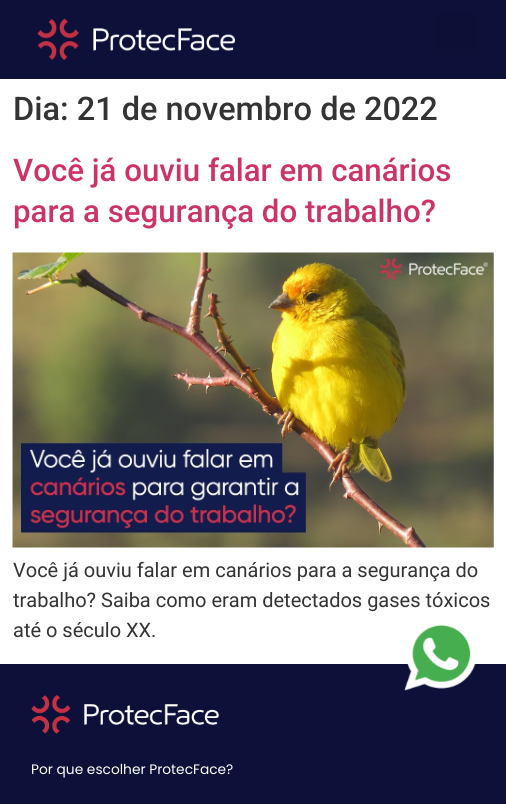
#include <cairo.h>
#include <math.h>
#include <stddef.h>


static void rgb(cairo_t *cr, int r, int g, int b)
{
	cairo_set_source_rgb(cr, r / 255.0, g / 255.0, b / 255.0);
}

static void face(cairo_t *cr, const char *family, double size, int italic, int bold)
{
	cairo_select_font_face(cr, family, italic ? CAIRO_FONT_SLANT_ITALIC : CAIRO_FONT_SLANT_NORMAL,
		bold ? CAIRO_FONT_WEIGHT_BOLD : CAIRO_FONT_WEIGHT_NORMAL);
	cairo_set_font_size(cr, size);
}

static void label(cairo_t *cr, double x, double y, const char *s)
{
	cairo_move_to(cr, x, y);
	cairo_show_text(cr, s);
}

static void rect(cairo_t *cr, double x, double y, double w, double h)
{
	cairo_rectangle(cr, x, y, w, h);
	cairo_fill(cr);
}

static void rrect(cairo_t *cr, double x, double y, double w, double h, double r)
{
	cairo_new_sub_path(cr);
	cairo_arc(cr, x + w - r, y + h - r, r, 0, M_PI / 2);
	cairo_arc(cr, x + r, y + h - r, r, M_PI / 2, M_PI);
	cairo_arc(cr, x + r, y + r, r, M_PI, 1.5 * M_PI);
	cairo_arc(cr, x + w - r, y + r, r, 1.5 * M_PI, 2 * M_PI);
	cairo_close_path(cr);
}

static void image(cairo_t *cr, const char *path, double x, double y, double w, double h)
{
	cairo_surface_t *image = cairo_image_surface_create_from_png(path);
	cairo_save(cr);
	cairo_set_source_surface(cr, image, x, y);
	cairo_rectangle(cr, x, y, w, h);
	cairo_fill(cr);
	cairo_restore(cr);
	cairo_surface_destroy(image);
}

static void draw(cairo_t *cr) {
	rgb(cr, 255, 255, 255);
	cairo_paint(cr);
	rgb(cr, 13, 17, 57);
	rect(cr, 0, 0, 506, 79);
	image(cr, "image0.png", 37, 18, 198, 42);
	rgb(cr, 12, 16, 54);
	rrect(cr, 435, 13, 41, 41, 4);
	cairo_fill(cr);
	face(cr, "Roboto Medium", 32.5, 0, 0);
	rgb(cr, 51, 51, 51);
	label(cr, 13, 120, "Dia: 21 de novembro de 2022");
	face(cr, "Roboto Medium", 31.25, 0, 0);
	rgb(cr, 204, 51, 102);
	label(cr, 13, 181, "Você já ouviu falar em canários");
	label(cr, 13, 222, "para a segurança do trabalho?");
	image(cr, "image1.png", 12, 252, 482, 296);
	face(cr, "Roboto", 20, 0, 0);
	rgb(cr, 51, 51, 51);
	label(cr, 13, 577, "Você já ouviu falar em canários para a segurança do");
	label(cr, 13, 607, "trabalho? Saiba como eram detectados gases tóxicos");
	label(cr, 13, 637, "até o século XX.");
	rgb(cr, 13, 17, 57);
	rect(cr, 0, 664, 506, 140);
	image(cr, "image2.png", 404, 624, 72, 67);
	image(cr, "image3.png", 31, 695, 188, 39);
	face(cr, "Poppins", 13.75, 0, 0);
	rgb(cr, 255, 255, 255);
	label(cr, 31, 774, "Por que escolher ProtecFace?");
}

int main(void) {
	cairo_surface_t *surface = cairo_image_surface_create(CAIRO_FORMAT_RGB24, 506, 804);
	cairo_t *cr = cairo_create(surface);
	cairo_font_options_t *options = cairo_font_options_create();
	cairo_font_options_set_hint_metrics(options, CAIRO_HINT_METRICS_OFF);
	cairo_font_options_set_hint_style(options, CAIRO_HINT_STYLE_NONE);
	cairo_set_font_options(cr, options);
	cairo_set_miter_limit(cr, 4);
	draw(cr);
	cairo_surface_write_to_png(surface, "render.png");
	cairo_font_options_destroy(options);
	cairo_destroy(cr);
	cairo_surface_destroy(surface);
	return 0;
}
